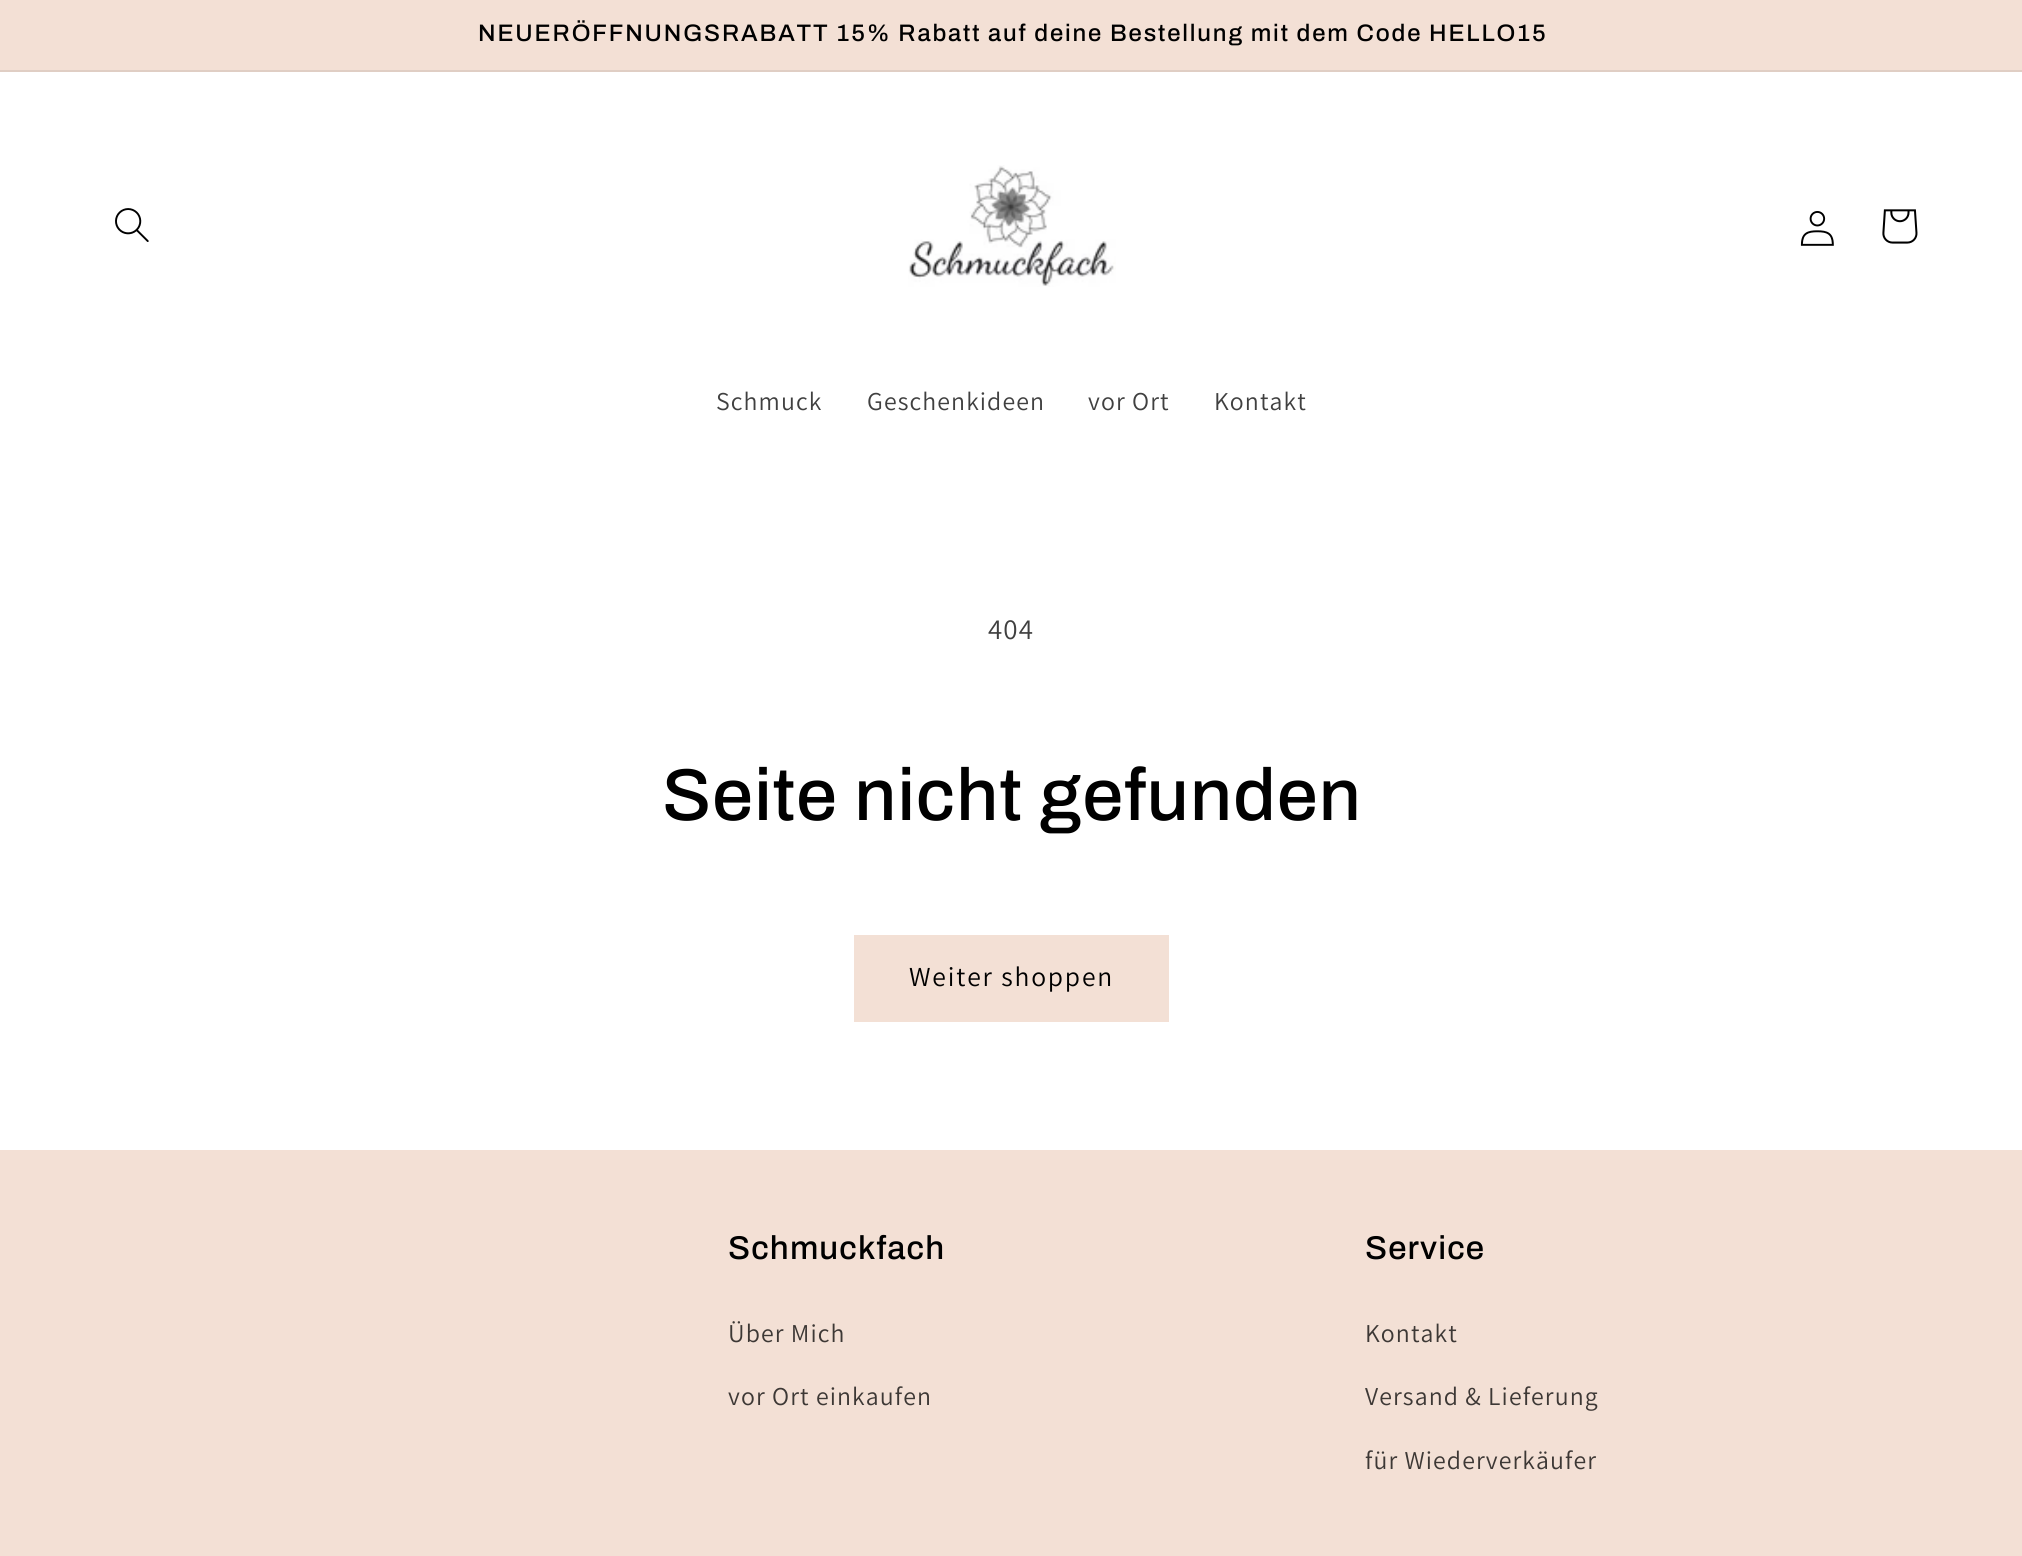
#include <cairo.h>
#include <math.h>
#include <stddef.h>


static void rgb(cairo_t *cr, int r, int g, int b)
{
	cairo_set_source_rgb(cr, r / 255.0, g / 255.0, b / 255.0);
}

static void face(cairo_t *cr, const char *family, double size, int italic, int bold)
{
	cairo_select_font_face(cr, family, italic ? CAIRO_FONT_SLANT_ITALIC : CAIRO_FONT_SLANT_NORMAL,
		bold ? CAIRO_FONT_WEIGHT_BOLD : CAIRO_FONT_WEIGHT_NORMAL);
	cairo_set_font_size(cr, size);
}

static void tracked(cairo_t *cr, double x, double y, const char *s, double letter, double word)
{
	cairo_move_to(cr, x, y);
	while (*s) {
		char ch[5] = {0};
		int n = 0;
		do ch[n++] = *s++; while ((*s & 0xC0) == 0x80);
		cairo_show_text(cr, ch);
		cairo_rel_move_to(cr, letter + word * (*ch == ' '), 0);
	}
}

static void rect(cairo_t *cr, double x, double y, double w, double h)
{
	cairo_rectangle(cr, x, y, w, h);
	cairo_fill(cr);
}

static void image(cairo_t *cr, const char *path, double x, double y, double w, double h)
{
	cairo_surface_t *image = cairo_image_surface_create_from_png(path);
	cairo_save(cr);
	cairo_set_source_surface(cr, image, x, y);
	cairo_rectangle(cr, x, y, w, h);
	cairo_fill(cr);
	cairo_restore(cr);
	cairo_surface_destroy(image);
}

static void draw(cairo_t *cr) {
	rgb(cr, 255, 255, 255);
	cairo_paint(cr);
	rgb(cr, 243, 224, 213);
	rect(cr, 0, 0, 2022, 70);
	rgb(cr, 224, 206, 196);
	rect(cr, 0, 70, 2022, 2);
	face(cr, "Archivo Medium", 23.9, 0, 0);
	rgb(cr, 0, 0, 0);
	tracked(cr, 478, 41, "NEUERÖFFNUNGSRABATT 15% Rabatt auf deine Bestellung mit dem Code HELLO15", 1.85, 0);
	image(cr, "image0.png", 115, 208, 34, 34);
	image(cr, "image1.png", 908, 165, 208, 122);
	image(cr, "image2.png", 1800, 211, 34, 35);
	image(cr, "image3.png", 1882, 209, 36, 35);
	face(cr, "Assistant", 25.75, 0, 0);
	rgb(cr, 64, 64, 64);
	tracked(cr, 716, 410, "Schmuck", 1.1, 0);
	tracked(cr, 867, 410, "Geschenkideen", 1.1, 0);
	tracked(cr, 1088, 410, "vor Ort", 1.1, 0);
	tracked(cr, 1214, 410, "Kontakt", 1.1, 0);
	face(cr, "Assistant", 29, 0, 0);
	tracked(cr, 988, 639, "404", 1.1, 0);
	face(cr, "Archivo Medium", 73.5, 0, 0);
	rgb(cr, 0, 0, 0);
	tracked(cr, 662, 820, "Seite nicht gefunden", 1.1, 0);
	rgb(cr, 243, 224, 213);
	rect(cr, 854, 935, 315, 87);
	face(cr, "Assistant", 27.5, 0, 0);
	rgb(cr, 0, 0, 0);
	tracked(cr, 909, 986, "Weiter shoppen", 1.85, 0);
	rgb(cr, 243, 224, 213);
	rect(cr, 0, 1150, 2022, 406);
	face(cr, "Archivo Medium", 33, 0, 0);
	rgb(cr, 0, 0, 0);
	tracked(cr, 728, 1259, "Schmuckfach", 1.1, 0);
	face(cr, "Assistant", 25.75, 0, 0);
	rgb(cr, 61, 56, 53);
	tracked(cr, 728, 1342, "Über Mich", 1.1, 0);
	tracked(cr, 728, 1405, "vor Ort einkaufen", 1.1, 0);
	face(cr, "Archivo Medium", 33, 0, 0);
	rgb(cr, 0, 0, 0);
	tracked(cr, 1365, 1259, "Service", 1.1, 0);
	face(cr, "Assistant", 25.75, 0, 0);
	rgb(cr, 61, 56, 53);
	tracked(cr, 1365, 1342, "Kontakt", 1.1, 0);
	tracked(cr, 1365, 1405, "Versand & Lieferung", 1.1, 0);
	tracked(cr, 1365, 1469, "für Wiederverkäufer", 1.1, 0);
}

int main(void) {
	cairo_surface_t *surface = cairo_image_surface_create(CAIRO_FORMAT_RGB24, 2022, 1556);
	cairo_t *cr = cairo_create(surface);
	cairo_font_options_t *options = cairo_font_options_create();
	cairo_font_options_set_hint_metrics(options, CAIRO_HINT_METRICS_OFF);
	cairo_font_options_set_hint_style(options, CAIRO_HINT_STYLE_NONE);
	cairo_set_font_options(cr, options);
	cairo_set_miter_limit(cr, 4);
	draw(cr);
	cairo_surface_write_to_png(surface, "render.png");
	cairo_font_options_destroy(options);
	cairo_destroy(cr);
	cairo_surface_destroy(surface);
	return 0;
}
